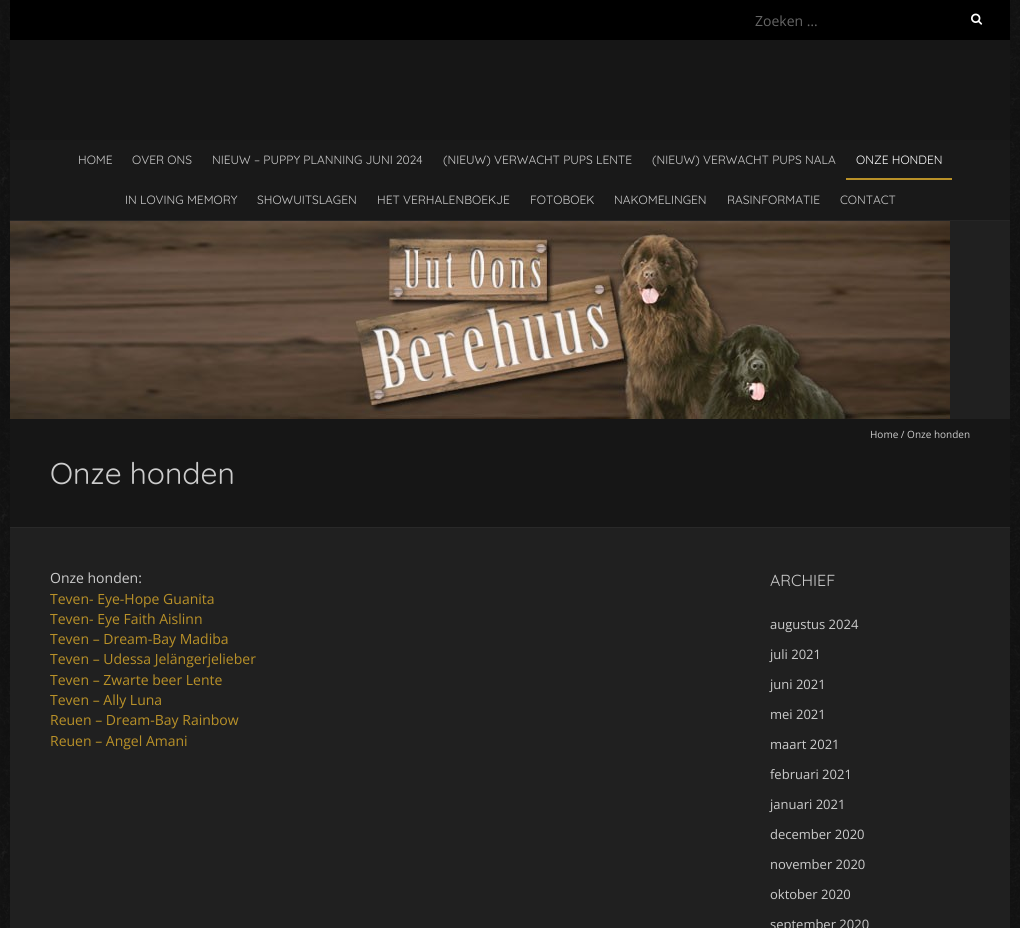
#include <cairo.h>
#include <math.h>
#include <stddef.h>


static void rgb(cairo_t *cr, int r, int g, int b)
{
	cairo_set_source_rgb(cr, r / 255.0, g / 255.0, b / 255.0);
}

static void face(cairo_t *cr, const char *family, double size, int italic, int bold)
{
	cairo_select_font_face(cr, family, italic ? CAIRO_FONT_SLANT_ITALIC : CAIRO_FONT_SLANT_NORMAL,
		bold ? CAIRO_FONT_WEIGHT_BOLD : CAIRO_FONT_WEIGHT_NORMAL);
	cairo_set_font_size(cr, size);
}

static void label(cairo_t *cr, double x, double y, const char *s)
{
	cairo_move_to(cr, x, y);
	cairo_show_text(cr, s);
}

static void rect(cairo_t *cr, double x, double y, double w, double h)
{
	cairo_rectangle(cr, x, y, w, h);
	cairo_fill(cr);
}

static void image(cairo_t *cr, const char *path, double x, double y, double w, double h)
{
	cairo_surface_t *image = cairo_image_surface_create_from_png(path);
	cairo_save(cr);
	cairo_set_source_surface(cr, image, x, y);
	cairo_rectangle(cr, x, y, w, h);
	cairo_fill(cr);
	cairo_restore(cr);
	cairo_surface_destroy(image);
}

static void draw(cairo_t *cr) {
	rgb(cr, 255, 255, 255);
	cairo_paint(cr);
	image(cr, "image0.png", 0, 0, 1020, 928);
	rgb(cr, 32, 32, 32);
	rect(cr, 10, 221, 1000, 707);
	rgb(cr, 0, 0, 0);
	rect(cr, 10, 0, 1000, 40);
	face(cr, "Open Sans", 14, 0, 0);
	rgb(cr, 102, 102, 102);
	label(cr, 755, 26, "Zoeken …");
	image(cr, "image1.png", 971, 13, 12, 12);
	rgb(cr, 22, 22, 22);
	rect(cr, 10, 40, 1000, 100);
	rgb(cr, 25, 25, 25);
	rect(cr, 10, 140, 1000, 80);
	rgb(cr, 37, 37, 37);
	rect(cr, 10, 220, 1000, 1);
	face(cr, "Quicksand", 12, 0, 0);
	rgb(cr, 204, 204, 204);
	label(cr, 78, 164, "HOME");
	label(cr, 132, 164, "OVER ONS");
	label(cr, 212, 164, "NIEUW – PUPPY PLANNING JUNI 2024");
	label(cr, 443, 164, "(NIEUW) VERWACHT PUPS LENTE");
	label(cr, 652, 164, "(NIEUW) VERWACHT PUPS NALA");
	rgb(cr, 185, 145, 40);
	rect(cr, 846, 178, 106, 2);
	rgb(cr, 255, 255, 255);
	label(cr, 856, 164, "ONZE HONDEN");
	rgb(cr, 204, 204, 204);
	label(cr, 125, 204, "IN LOVING MEMORY");
	label(cr, 257, 204, "SHOWUITSLAGEN");
	label(cr, 377, 204, "HET VERHALENBOEKJE");
	label(cr, 530, 204, "FOTOBOEK");
	label(cr, 614, 204, "NAKOMELINGEN");
	label(cr, 727, 204, "RASINFORMATIE");
	label(cr, 840, 204, "CONTACT");
	image(cr, "image2.png", 10, 221, 940, 198);
	rgb(cr, 22, 22, 22);
	rect(cr, 10, 419, 1000, 108);
	rgb(cr, 41, 41, 41);
	rect(cr, 10, 527, 1000, 1);
	face(cr, "Open Sans", 10, 0, 0);
	rgb(cr, 204, 204, 204);
	label(cr, 870, 438, "Home / Onze honden");
	face(cr, "Quicksand", 30, 0, 0);
	label(cr, 50, 484, "Onze honden");
	face(cr, "Open Sans", 14, 0, 0);
	label(cr, 50, 583, "Onze honden:");
	rgb(cr, 185, 145, 40);
	label(cr, 50, 604, "Teven- Eye-Hope Guanita");
	label(cr, 50, 624, "Teven- Eye Faith Aislinn");
	label(cr, 50, 644, "Teven – Dream-Bay Madiba");
	label(cr, 50, 664, "Teven – Udessa Jelängerjelieber");
	label(cr, 50, 685, "Teven – Zwarte beer Lente");
	label(cr, 50, 705, "Teven – Ally Luna");
	label(cr, 50, 725, "Reuen – Dream-Bay Rainbow");
	label(cr, 50, 746, "Reuen – Angel Amani");
	face(cr, "Quicksand", 16, 0, 0);
	rgb(cr, 204, 204, 204);
	label(cr, 770, 586, "ARCHIEF");
	face(cr, "Open Sans", 13, 0, 0);
	label(cr, 770, 629, "augustus 2024");
	label(cr, 770, 659, "juli 2021");
	label(cr, 770, 689, "juni 2021");
	label(cr, 770, 719, "mei 2021");
	label(cr, 770, 749, "maart 2021");
	label(cr, 770, 779, "februari 2021");
	label(cr, 770, 809, "januari 2021");
	label(cr, 770, 839, "december 2020");
	label(cr, 770, 869, "november 2020");
	label(cr, 770, 899, "oktober 2020");
	label(cr, 770, 929, "september 2020");
}

int main(void) {
	cairo_surface_t *surface = cairo_image_surface_create(CAIRO_FORMAT_RGB24, 1020, 928);
	cairo_t *cr = cairo_create(surface);
	cairo_font_options_t *options = cairo_font_options_create();
	cairo_font_options_set_hint_metrics(options, CAIRO_HINT_METRICS_OFF);
	cairo_font_options_set_hint_style(options, CAIRO_HINT_STYLE_NONE);
	cairo_set_font_options(cr, options);
	cairo_set_miter_limit(cr, 4);
	draw(cr);
	cairo_surface_write_to_png(surface, "render.png");
	cairo_font_options_destroy(options);
	cairo_destroy(cr);
	cairo_surface_destroy(surface);
	return 0;
}
